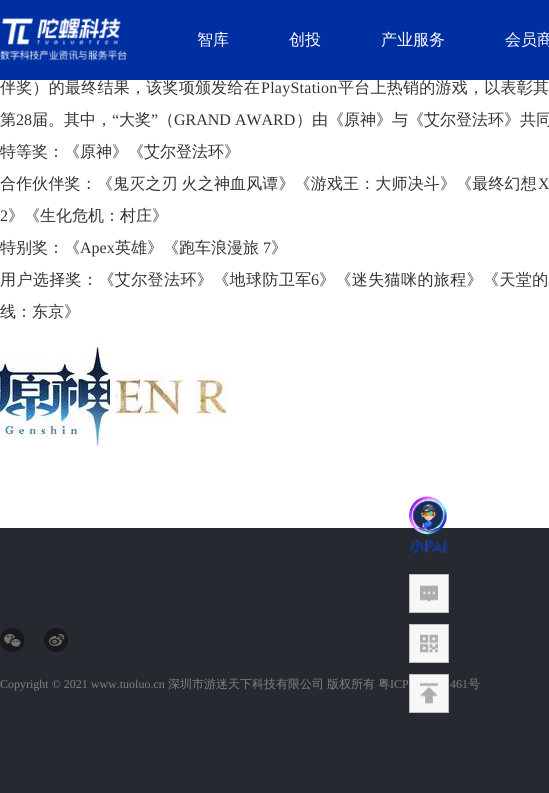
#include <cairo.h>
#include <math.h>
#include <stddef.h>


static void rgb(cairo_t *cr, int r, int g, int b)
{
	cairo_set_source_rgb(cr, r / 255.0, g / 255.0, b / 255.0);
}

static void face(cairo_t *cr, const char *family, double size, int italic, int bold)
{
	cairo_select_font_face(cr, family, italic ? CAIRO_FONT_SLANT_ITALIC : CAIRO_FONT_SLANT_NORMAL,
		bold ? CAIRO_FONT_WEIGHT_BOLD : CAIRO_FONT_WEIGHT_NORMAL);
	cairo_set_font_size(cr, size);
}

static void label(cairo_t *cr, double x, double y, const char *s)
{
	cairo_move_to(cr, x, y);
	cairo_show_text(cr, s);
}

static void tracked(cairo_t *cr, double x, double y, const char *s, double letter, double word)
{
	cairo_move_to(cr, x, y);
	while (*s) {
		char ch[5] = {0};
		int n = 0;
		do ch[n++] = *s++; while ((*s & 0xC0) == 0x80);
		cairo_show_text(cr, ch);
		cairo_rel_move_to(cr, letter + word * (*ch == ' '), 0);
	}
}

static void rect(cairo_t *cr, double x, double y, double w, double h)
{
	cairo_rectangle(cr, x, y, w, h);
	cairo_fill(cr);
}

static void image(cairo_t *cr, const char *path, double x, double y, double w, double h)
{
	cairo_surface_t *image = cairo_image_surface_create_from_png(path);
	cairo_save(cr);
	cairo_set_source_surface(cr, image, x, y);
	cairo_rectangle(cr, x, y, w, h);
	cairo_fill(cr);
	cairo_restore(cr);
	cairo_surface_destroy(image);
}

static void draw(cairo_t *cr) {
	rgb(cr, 255, 255, 255);
	cairo_paint(cr);
	face(cr, "WenQuanYi Zen Hei Medium", 16, 0, 0);
	rgb(cr, 51, 51, 51);
	tracked(cr, 0, 93, "伴奖）的最终结果，该奖项颁发给在", 0.25, 0);
	tracked(cr, 338, 93, "平台上热销的游戏，以表彰其", 0.25, 0);
	rgb(cr, 0, 47, 161);
	rect(cr, 0, 0, 549, 80);
	image(cr, "image0.png", 0, 18, 127, 43);
	rgb(cr, 255, 255, 255);
	label(cr, 197, 45, "智库");
	label(cr, 289, 45, "创投");
	label(cr, 381, 45, "产业服务");
	label(cr, 505, 45, "会员商");
	face(cr, "Liberation Serif", 16, 0, 0);
	rgb(cr, 51, 51, 51);
	tracked(cr, 261, 93, "PlayStation", 0.25, 0);
	face(cr, "WenQuanYi Zen Hei Medium", 16, 0, 0);
	label(cr, 0, 125, "第");
	face(cr, "Liberation Serif", 16, 0, 0);
	label(cr, 16, 125, "28");
	face(cr, "WenQuanYi Zen Hei Medium", 16, 0, 0);
	label(cr, 32, 125, "届。其中，");
	face(cr, "Liberation Serif", 16, 0, 0);
	label(cr, 112, 125, "“");
	face(cr, "WenQuanYi Zen Hei Medium", 16, 0, 0);
	label(cr, 119, 125, "大奖");
	face(cr, "Liberation Serif", 16, 0, 0);
	label(cr, 151, 125, "”");
	face(cr, "WenQuanYi Zen Hei Medium", 16, 0, 0);
	label(cr, 158, 125, "（");
	face(cr, "Liberation Serif", 16, 0, 0);
	label(cr, 174, 125, "GRAND AWARD");
	face(cr, "WenQuanYi Zen Hei Medium", 16, 0, 0);
	label(cr, 296, 125, "）由《原神》与《艾尔登法环》共同");
	label(cr, 0, 157, "特等奖：《原神》《艾尔登法环》");
	tracked(cr, 0, 189, "合作伙伴奖：《鬼灭之刃 火之神血风谭》《游戏王：大师决斗》《最终幻想", 0.15, -1);
	face(cr, "Liberation Serif", 16, 0, 0);
	tracked(cr, 538, 189, "X", 0.15, 0);
	label(cr, 0, 221, "2");
	face(cr, "WenQuanYi Zen Hei Medium", 16, 0, 0);
	label(cr, 8, 221, "》《生化危机：村庄》");
	label(cr, 0, 253, "特别奖：《");
	face(cr, "Liberation Serif", 16, 0, 0);
	label(cr, 80, 253, "Apex");
	face(cr, "WenQuanYi Zen Hei Medium", 16, 0, 0);
	label(cr, 115, 253, "英雄》《跑车浪漫旅");
	face(cr, "Liberation Serif", 16, 0, 0);
	label(cr, 263, 253, "7");
	face(cr, "WenQuanYi Zen Hei Medium", 16, 0, 0);
	label(cr, 271, 253, "》");
	tracked(cr, 0, 285, "用户选择奖：《艾尔登法环》《地球防卫军", 0.4, 0);
	face(cr, "Liberation Serif", 16, 0, 0);
	tracked(cr, 311, 285, "6", 0.4, 0);
	face(cr, "WenQuanYi Zen Hei Medium", 16, 0, 0);
	tracked(cr, 319, 285, "》《迷失猫咪的旅程》《天堂的", 0.4, 0);
	label(cr, 0, 317, "线：东京》");
	image(cr, "image1.png", 0, 342, 110, 105);
	image(cr, "image2.png", 116, 374, 110, 48);
	rgb(cr, 38, 41, 48);
	rect(cr, 0, 528, 549, 265);
	image(cr, "image3.png", 409, 496, 38, 57);
	image(cr, "image4.png", 409, 574, 40, 39);
	image(cr, "image5.png", 409, 624, 40, 39);
	image(cr, "image6.png", 409, 674, 40, 39);
	image(cr, "image7.png", 0, 628, 24, 24);
	image(cr, "image8.png", 44, 628, 24, 24);
	face(cr, "Liberation Serif", 12, 0, 0);
	rgb(cr, 128, 128, 128);
	label(cr, 0, 688, "Copyright © 2021 www.tuoluo.cn");
	face(cr, "WenQuanYi Zen Hei Medium", 12, 0, 0);
	label(cr, 168, 688, "深圳市游迷天下科技有限公司");
	label(cr, 327, 688, "版权所有");
	label(cr, 378, 688, "粤");
	face(cr, "Liberation Serif", 12, 0, 0);
	label(cr, 390, 688, "ICP");
	label(cr, 450, 688, "461");
	face(cr, "WenQuanYi Zen Hei Medium", 12, 0, 0);
	label(cr, 468, 688, "号");
}

int main(void) {
	cairo_surface_t *surface = cairo_image_surface_create(CAIRO_FORMAT_RGB24, 549, 793);
	cairo_t *cr = cairo_create(surface);
	cairo_font_options_t *options = cairo_font_options_create();
	cairo_font_options_set_hint_metrics(options, CAIRO_HINT_METRICS_OFF);
	cairo_font_options_set_hint_style(options, CAIRO_HINT_STYLE_NONE);
	cairo_set_font_options(cr, options);
	cairo_set_miter_limit(cr, 4);
	draw(cr);
	cairo_surface_write_to_png(surface, "render.png");
	cairo_font_options_destroy(options);
	cairo_destroy(cr);
	cairo_surface_destroy(surface);
	return 0;
}
